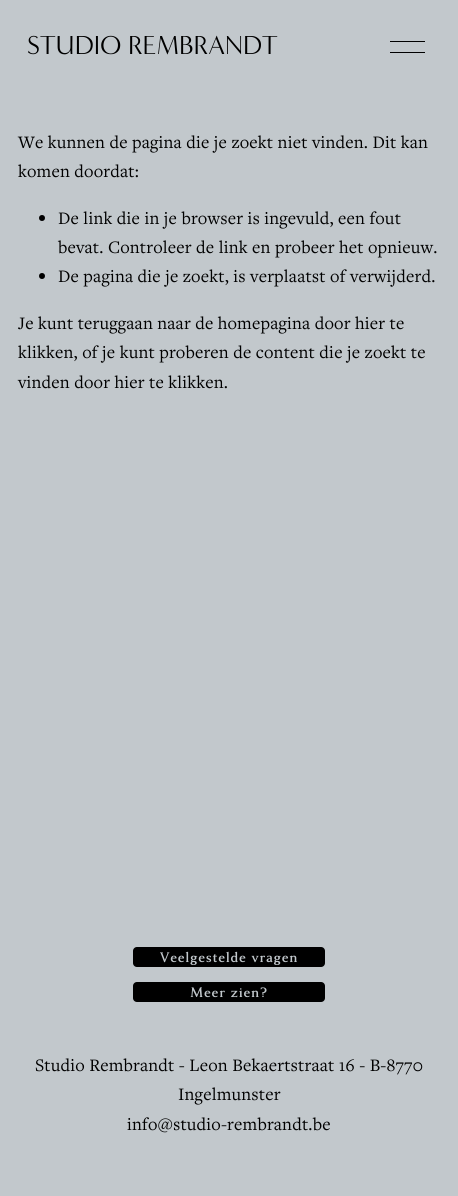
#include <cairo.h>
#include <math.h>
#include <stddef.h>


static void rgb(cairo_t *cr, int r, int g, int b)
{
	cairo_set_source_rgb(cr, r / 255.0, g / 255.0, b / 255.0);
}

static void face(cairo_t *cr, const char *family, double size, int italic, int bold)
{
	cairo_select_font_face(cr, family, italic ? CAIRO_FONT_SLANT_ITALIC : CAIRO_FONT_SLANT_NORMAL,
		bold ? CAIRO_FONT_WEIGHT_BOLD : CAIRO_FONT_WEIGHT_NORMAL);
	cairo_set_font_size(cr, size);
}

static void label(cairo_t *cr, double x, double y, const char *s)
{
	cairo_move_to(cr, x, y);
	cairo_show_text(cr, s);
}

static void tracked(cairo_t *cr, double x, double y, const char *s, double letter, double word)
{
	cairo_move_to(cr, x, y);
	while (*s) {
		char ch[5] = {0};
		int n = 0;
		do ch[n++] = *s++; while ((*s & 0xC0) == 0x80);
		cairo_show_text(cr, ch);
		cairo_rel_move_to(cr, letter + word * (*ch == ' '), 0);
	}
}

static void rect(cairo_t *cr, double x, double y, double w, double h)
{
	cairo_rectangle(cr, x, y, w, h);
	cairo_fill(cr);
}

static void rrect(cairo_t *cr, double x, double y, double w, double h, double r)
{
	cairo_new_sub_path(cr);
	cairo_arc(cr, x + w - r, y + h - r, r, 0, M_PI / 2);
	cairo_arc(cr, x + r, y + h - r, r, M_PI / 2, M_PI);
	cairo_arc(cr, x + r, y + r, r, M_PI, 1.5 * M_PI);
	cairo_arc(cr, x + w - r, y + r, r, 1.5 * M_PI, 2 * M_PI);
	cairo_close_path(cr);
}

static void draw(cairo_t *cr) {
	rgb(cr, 194, 200, 204);
	cairo_paint(cr);
	face(cr, "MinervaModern", 26.75, 0, 0);
	rgb(cr, 0, 0, 0);
	label(cr, 27, 54, "STUDIO REMBRANDT");
	rect(cr, 390, 41, 35, 1);
	rect(cr, 390, 52, 35, 1);
	face(cr, "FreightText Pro", 18.2, 0, 0);
	tracked(cr, 18, 148, "We kunnen de pagina die je zoekt niet vinden. Dit kan", 0.18, 0);
	tracked(cr, 18, 177, "komen doordat:", 0.18, 0);
	cairo_new_path(cr);
	cairo_arc(cr, 42, 218, 3, 0, 2 * M_PI);
	cairo_fill(cr);
	tracked(cr, 58, 224, "De link die in je browser is ingevuld, een fout", 0.18, 0);
	tracked(cr, 58, 253, "bevat. Controleer de link en probeer het opnieuw.", 0.18, 0);
	cairo_new_path(cr);
	cairo_arc(cr, 42, 276, 3, 0, 2 * M_PI);
	cairo_fill(cr);
	tracked(cr, 58, 282, "De pagina die je zoekt, is verplaatst of verwijderd.", 0.18, 0);
	tracked(cr, 18, 329, "Je kunt teruggaan naar de homepagina door hier te", 0.18, 0);
	tracked(cr, 18, 358, "klikken, of je kunt proberen de content die je zoekt te", 0.18, 0);
	tracked(cr, 18, 388, "vinden door hier te klikken.", 0.18, 0);
	rrect(cr, 132, 946, 194, 22, 5);
	cairo_fill_preserve(cr);
	rgb(cr, 194, 200, 204);
	cairo_stroke(cr);
	face(cr, "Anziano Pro", 15, 0, 1);
	tracked(cr, 160, 962, "Veelgestelde vragen", 0.75, 0);
	rgb(cr, 0, 0, 0);
	rrect(cr, 132, 981, 194, 22, 5);
	cairo_fill_preserve(cr);
	rgb(cr, 194, 200, 204);
	cairo_stroke(cr);
	tracked(cr, 190, 997, "Meer zien?", 0.75, 0);
	face(cr, "FreightText Pro", 18.2, 0, 0);
	rgb(cr, 0, 0, 0);
	tracked(cr, 35, 1071, "Studio Rembrandt - Leon Bekaertstraat 16 - B-8770", 0.18, 0);
	tracked(cr, 178, 1100, "Ingelmunster", 0.18, 0);
	tracked(cr, 127, 1130, "info@studio-rembrandt.be", 0.18, 0);
}

int main(void) {
	cairo_surface_t *surface = cairo_image_surface_create(CAIRO_FORMAT_RGB24, 458, 1196);
	cairo_t *cr = cairo_create(surface);
	cairo_font_options_t *options = cairo_font_options_create();
	cairo_font_options_set_hint_metrics(options, CAIRO_HINT_METRICS_OFF);
	cairo_font_options_set_hint_style(options, CAIRO_HINT_STYLE_NONE);
	cairo_set_font_options(cr, options);
	cairo_set_miter_limit(cr, 4);
	draw(cr);
	cairo_surface_write_to_png(surface, "render.png");
	cairo_font_options_destroy(options);
	cairo_destroy(cr);
	cairo_surface_destroy(surface);
	return 0;
}
